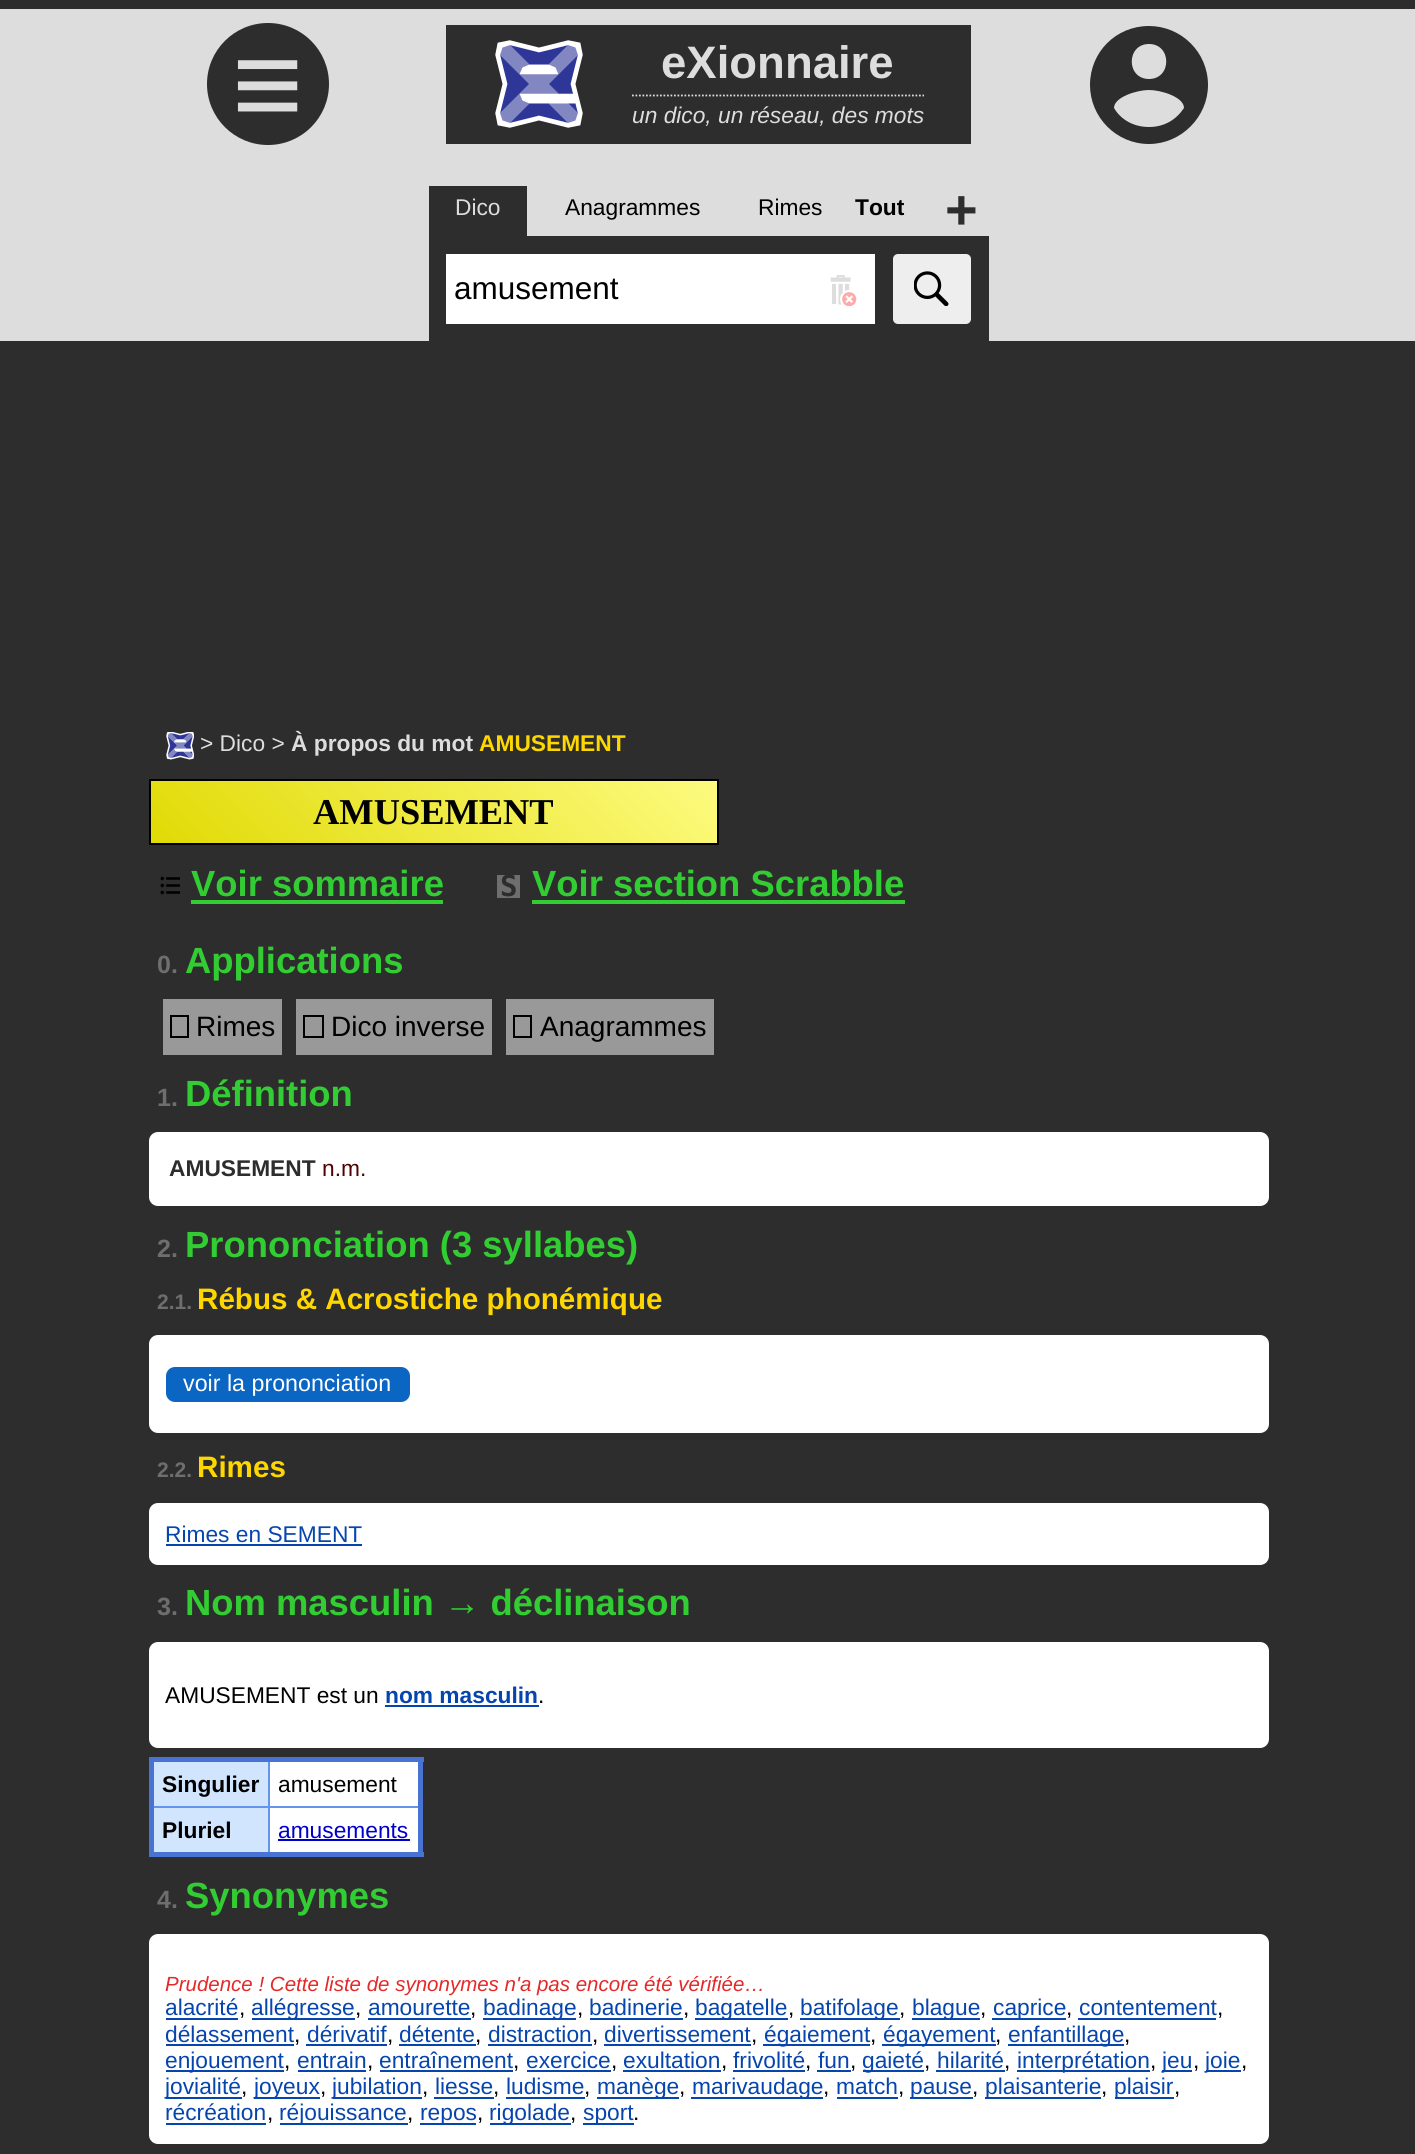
#include <cairo.h>
#include <math.h>
#include <stddef.h>


static void rgb(cairo_t *cr, int r, int g, int b)
{
	cairo_set_source_rgb(cr, r / 255.0, g / 255.0, b / 255.0);
}

static void face(cairo_t *cr, const char *family, double size, int italic, int bold)
{
	cairo_select_font_face(cr, family, italic ? CAIRO_FONT_SLANT_ITALIC : CAIRO_FONT_SLANT_NORMAL,
		bold ? CAIRO_FONT_WEIGHT_BOLD : CAIRO_FONT_WEIGHT_NORMAL);
	cairo_set_font_size(cr, size);
}

static void label(cairo_t *cr, double x, double y, const char *s)
{
	cairo_move_to(cr, x, y);
	cairo_show_text(cr, s);
}

static void rect(cairo_t *cr, double x, double y, double w, double h)
{
	cairo_rectangle(cr, x, y, w, h);
	cairo_fill(cr);
}

static void rrect(cairo_t *cr, double x, double y, double w, double h, double r)
{
	cairo_new_sub_path(cr);
	cairo_arc(cr, x + w - r, y + h - r, r, 0, M_PI / 2);
	cairo_arc(cr, x + r, y + h - r, r, M_PI / 2, M_PI);
	cairo_arc(cr, x + r, y + r, r, M_PI, 1.5 * M_PI);
	cairo_arc(cr, x + w - r, y + r, r, 1.5 * M_PI, 2 * M_PI);
	cairo_close_path(cr);
}

static void image(cairo_t *cr, const char *path, double x, double y, double w, double h)
{
	cairo_surface_t *image = cairo_image_surface_create_from_png(path);
	cairo_save(cr);
	cairo_set_source_surface(cr, image, x, y);
	cairo_rectangle(cr, x, y, w, h);
	cairo_fill(cr);
	cairo_restore(cr);
	cairo_surface_destroy(image);
}

static void draw(cairo_t *cr) {
	cairo_pattern_t *gradient;
	rgb(cr, 45, 45, 45);
	cairo_paint(cr);
	rgb(cr, 221, 221, 221);
	rect(cr, 0, 9, 1415, 332);
	rgb(cr, 45, 45, 45);
	cairo_arc(cr, 268, 84, 61, 0, 2 * M_PI);
	cairo_fill(cr);
	face(cr, "Liberation Sans", 122, 0, 0);
	rgb(cr, 221, 221, 221);
	label(cr, 232, 126, "≡");
	rgb(cr, 45, 45, 45);
	rect(cr, 446, 25, 525, 119);
	image(cr, "image0.png", 495, 40, 88, 88);
	face(cr, "Liberation Sans", 45.5, 0, 1);
	rgb(cr, 221, 221, 221);
	label(cr, 661, 78, "eXionnaire");
	cairo_new_path(cr);
	cairo_move_to(cr, 632, 95.5);
	cairo_line_to(cr, 924, 95.5);
	cairo_set_line_width(cr, 1.8);
	cairo_set_dash(cr, (double[]){1.75, 1.75}, 2, 0);
	cairo_stroke(cr);
	face(cr, "Liberation Sans", 22.75, 1, 0);
	label(cr, 632, 123, "un dico, un réseau, des mots");
	rgb(cr, 45, 45, 45);
	cairo_new_path(cr);
	cairo_move_to(cr, 1149, 26);
	cairo_curve_to(cr, 1116, 26, 1090, 52, 1090, 85);
	cairo_curve_to(cr, 1090, 117, 1116, 144, 1149, 144);
	cairo_curve_to(cr, 1181, 144, 1208, 117, 1208, 85);
	cairo_curve_to(cr, 1208, 52, 1181, 26, 1149, 26);
	cairo_close_path(cr);
	cairo_move_to(cr, 1149, 44);
	cairo_curve_to(cr, 1172, 44, 1172, 79, 1149, 79);
	cairo_curve_to(cr, 1126, 79, 1126, 44, 1149, 44);
	cairo_close_path(cr);
	cairo_move_to(cr, 1149, 127);
	cairo_curve_to(cr, 1134, 127, 1121, 120, 1114, 108);
	cairo_curve_to(cr, 1114, 97, 1137, 90, 1149, 90);
	cairo_curve_to(cr, 1161, 90, 1184, 97, 1184, 108);
	cairo_curve_to(cr, 1176, 120, 1164, 127, 1149, 127);
	cairo_close_path(cr);
	cairo_fill(cr);
	rect(cr, 429, 186, 98, 50);
	face(cr, "Liberation Sans", 22.75, 0, 0);
	rgb(cr, 221, 221, 221);
	label(cr, 455, 215, "Dico");
	rgb(cr, 0, 0, 0);
	label(cr, 565, 215, "Anagrammes");
	label(cr, 758, 215, "Rimes");
	face(cr, "Liberation Sans", 22.75, 0, 1);
	label(cr, 855, 215, "Tout");
	face(cr, "Liberation Sans", 56, 0, 1);
	rgb(cr, 45, 45, 45);
	label(cr, 945, 229, "+");
	rect(cr, 429, 236, 560, 105);
	rgb(cr, 255, 255, 255);
	rect(cr, 446, 254, 429, 70);
	face(cr, "Liberation Sans", 31.5, 0, 0);
	rgb(cr, 0, 0, 0);
	label(cr, 454, 299, "amusement");
	image(cr, "image1.png", 830, 275, 27, 31);
	rgb(cr, 238, 238, 238);
	rrect(cr, 893, 254, 78, 70, 5);
	cairo_fill(cr);
	image(cr, "image2.png", 914, 271, 35, 35);
	image(cr, "image3.png", 166, 732, 28, 28);
	face(cr, "Liberation Sans", 22.75, 0, 0);
	rgb(cr, 221, 221, 221);
	label(cr, 200, 751, "> Dico >");
	face(cr, "Liberation Sans", 22.75, 0, 1);
	label(cr, 291, 751, "À propos du mot");
	rgb(cr, 255, 215, 0);
	label(cr, 479, 751, "AMUSEMENT");
	gradient = cairo_pattern_create_linear(277, 970, 592, 655);
	cairo_pattern_add_color_stop_rgba(gradient, 0, 0.882, 0.855, 0.02, 1);
	cairo_pattern_add_color_stop_rgba(gradient, 1, 0.992, 0.984, 0.498, 1);
	cairo_set_source(cr, gradient);
	cairo_pattern_destroy(gradient);
	rect(cr, 151, 781, 566, 62);
	cairo_rectangle(cr, 150, 780, 568, 64);
	rgb(cr, 0, 0, 0);
	cairo_set_line_width(cr, 2);
	cairo_set_dash(cr, NULL, 0, 0);
	cairo_stroke(cr);
	face(cr, "Liberation Serif", 36.4, 0, 1);
	label(cr, 313, 824, "AMUSEMENT");
	image(cr, "image4.png", 160, 876, 20, 19);
	face(cr, "Liberation Sans", 36.4, 0, 1);
	rgb(cr, 50, 205, 50);
	label(cr, 191, 896, "Voir sommaire");
	rect(cr, 191, 900, 252, 4);
	rgb(cr, 110, 110, 110);
	rect(cr, 497, 875, 23, 23);
	face(cr, "DejaVu Sans Mono", 29, 0, 1);
	rgb(cr, 45, 45, 45);
	label(cr, 500, 896, "S");
	face(cr, "Liberation Sans", 36.4, 0, 1);
	rgb(cr, 50, 205, 50);
	label(cr, 532, 896, "Voir section Scrabble");
	rect(cr, 532, 900, 373, 4);
	face(cr, "Liberation Sans", 25, 0, 1);
	rgb(cr, 110, 110, 110);
	label(cr, 157, 973, "0.");
	face(cr, "Liberation Sans", 36.4, 0, 1);
	rgb(cr, 50, 205, 50);
	label(cr, 185, 973, "Applications");
	rgb(cr, 153, 153, 153);
	rect(cr, 163, 999, 119, 56);
	cairo_rectangle(cr, 171, 1016, 17, 21);
	rgb(cr, 0, 0, 0);
	cairo_stroke(cr);
	face(cr, "Liberation Sans", 28, 0, 0);
	label(cr, 196, 1036, "Rimes");
	rgb(cr, 153, 153, 153);
	rect(cr, 296, 999, 196, 56);
	cairo_rectangle(cr, 304, 1016, 19, 21);
	rgb(cr, 0, 0, 0);
	cairo_stroke(cr);
	label(cr, 331, 1036, "Dico inverse");
	rgb(cr, 153, 153, 153);
	rect(cr, 506, 999, 208, 56);
	cairo_rectangle(cr, 514, 1016, 17, 21);
	rgb(cr, 0, 0, 0);
	cairo_stroke(cr);
	label(cr, 540, 1036, "Anagrammes");
	face(cr, "Liberation Sans", 25, 0, 1);
	rgb(cr, 110, 110, 110);
	label(cr, 157, 1106, "1.");
	face(cr, "Liberation Sans", 36.4, 0, 1);
	rgb(cr, 50, 205, 50);
	label(cr, 185, 1106, "Définition");
	rgb(cr, 255, 255, 255);
	rrect(cr, 149, 1132, 1120, 74, 9);
	cairo_fill(cr);
	face(cr, "Liberation Sans", 22.75, 0, 1);
	rgb(cr, 45, 45, 45);
	label(cr, 169, 1176, "AMUSEMENT");
	face(cr, "Liberation Sans", 22.75, 0, 0);
	rgb(cr, 85, 0, 0);
	label(cr, 322, 1176, "n.m.");
	face(cr, "Liberation Sans", 25, 0, 1);
	rgb(cr, 110, 110, 110);
	label(cr, 157, 1257, "2.");
	face(cr, "Liberation Sans", 36.4, 0, 1);
	rgb(cr, 50, 205, 50);
	label(cr, 185, 1257, "Prononciation (3 syllabes)");
	face(cr, "Liberation Sans", 21, 0, 1);
	rgb(cr, 110, 110, 110);
	label(cr, 157, 1309, "2.1.");
	face(cr, "Liberation Sans", 29.6, 0, 1);
	rgb(cr, 255, 215, 0);
	label(cr, 197, 1309, "Rébus & Acrostiche phonémique");
	rgb(cr, 255, 255, 255);
	rrect(cr, 149, 1335, 1120, 98, 9);
	cairo_fill(cr);
	rgb(cr, 10, 102, 194);
	rrect(cr, 166, 1367, 244, 35, 9);
	cairo_fill(cr);
	face(cr, "Liberation Sans", 23.25, 0, 0);
	rgb(cr, 255, 255, 255);
	label(cr, 183, 1391, "voir la prononciation");
	face(cr, "Liberation Sans", 21, 0, 1);
	rgb(cr, 110, 110, 110);
	label(cr, 157, 1477, "2.2.");
	face(cr, "Liberation Sans", 29.6, 0, 1);
	rgb(cr, 255, 215, 0);
	label(cr, 197, 1477, "Rimes");
	rgb(cr, 255, 255, 255);
	rrect(cr, 149, 1503, 1120, 62, 9);
	cairo_fill(cr);
	face(cr, "Liberation Sans", 22.75, 0, 0);
	rgb(cr, 6, 69, 173);
	label(cr, 165, 1542, "Rimes en SEMENT");
	rect(cr, 166, 1544, 196, 2);
	face(cr, "Liberation Sans", 25, 0, 1);
	rgb(cr, 110, 110, 110);
	label(cr, 157, 1615, "3.");
	face(cr, "Liberation Sans", 36.4, 0, 1);
	rgb(cr, 50, 205, 50);
	label(cr, 185, 1615, "Nom masculin → déclinaison");
	rgb(cr, 255, 255, 255);
	rrect(cr, 149, 1642, 1120, 106, 9);
	cairo_fill(cr);
	face(cr, "Liberation Sans", 22.75, 0, 0);
	rgb(cr, 0, 0, 0);
	label(cr, 165, 1703, "AMUSEMENT est un");
	face(cr, "Liberation Sans", 22.75, 0, 1);
	rgb(cr, 6, 69, 173);
	label(cr, 385, 1703, "nom masculin");
	rect(cr, 385, 1705, 154, 2);
	face(cr, "Liberation Sans", 22.75, 0, 0);
	rgb(cr, 0, 0, 0);
	label(cr, 538, 1703, ".");
	rgb(cr, 100, 149, 237);
	rect(cr, 268, 1806, 154, 2);
	rect(cr, 268, 1806, 2, 49);
	rect(cr, 151, 1806, 119, 2);
	rect(cr, 268, 1759, 2, 49);
	rgb(cr, 73, 115, 210);
	rect(cr, 149, 1757, 275, 5);
	rect(cr, 418, 1757, 5, 100);
	rect(cr, 149, 1852, 275, 5);
	rect(cr, 149, 1757, 5, 100);
	rgb(cr, 209, 230, 254);
	rect(cr, 154, 1762, 114, 44);
	face(cr, "Liberation Sans", 22.75, 0, 1);
	rgb(cr, 0, 0, 0);
	label(cr, 162, 1792, "Singulier");
	rgb(cr, 255, 255, 255);
	rect(cr, 270, 1762, 148, 44);
	face(cr, "Liberation Sans", 22.75, 0, 0);
	rgb(cr, 0, 0, 0);
	label(cr, 278, 1792, "amusement");
	rgb(cr, 209, 230, 254);
	rect(cr, 154, 1808, 114, 44);
	face(cr, "Liberation Sans", 22.75, 0, 1);
	rgb(cr, 0, 0, 0);
	label(cr, 162, 1838, "Pluriel");
	rgb(cr, 255, 255, 255);
	rect(cr, 270, 1808, 148, 44);
	face(cr, "Liberation Sans", 22.75, 0, 0);
	rgb(cr, 0, 0, 205);
	label(cr, 278, 1838, "amusements");
	rect(cr, 278, 1839, 132, 2);
	face(cr, "Liberation Sans", 25, 0, 1);
	rgb(cr, 110, 110, 110);
	label(cr, 157, 1908, "4.");
	face(cr, "Liberation Sans", 36.4, 0, 1);
	rgb(cr, 50, 205, 50);
	label(cr, 185, 1908, "Synonymes");
	rgb(cr, 255, 255, 255);
	rrect(cr, 149, 1934, 1120, 210, 9);
	cairo_fill(cr);
	face(cr, "Liberation Sans", 20.5, 1, 0);
	rgb(cr, 229, 40, 40);
	label(cr, 165, 1991, "Prudence ! Cette liste de synonymes n'a pas encore été vérifiée…");
	face(cr, "Liberation Sans", 22.75, 0, 0);
	rgb(cr, 6, 69, 173);
	label(cr, 165, 2015, "alacrité");
	rect(cr, 166, 2018, 72, 2);
	rgb(cr, 0, 0, 0);
	label(cr, 239, 2015, ",");
	rgb(cr, 6, 69, 173);
	rect(cr, 252, 2018, 103, 2);
	label(cr, 251, 2015, "allégresse");
	rgb(cr, 0, 0, 0);
	label(cr, 355, 2015, ",");
	rgb(cr, 6, 69, 173);
	label(cr, 368, 2015, "amourette");
	rect(cr, 368, 2018, 103, 2);
	rgb(cr, 0, 0, 0);
	label(cr, 470, 2015, ",");
	rgb(cr, 6, 69, 173);
	rect(cr, 483, 2018, 93, 2);
	label(cr, 483, 2015, "badinage");
	rgb(cr, 0, 0, 0);
	label(cr, 577, 2015, ",");
	rgb(cr, 6, 69, 173);
	label(cr, 589, 2015, "badinerie");
	rect(cr, 590, 2018, 93, 2);
	rgb(cr, 0, 0, 0);
	label(cr, 683, 2015, ",");
	rgb(cr, 6, 69, 173);
	rect(cr, 695, 2018, 93, 2);
	label(cr, 695, 2015, "bagatelle");
	rgb(cr, 0, 0, 0);
	label(cr, 788, 2015, ",");
	rgb(cr, 6, 69, 173);
	rect(cr, 800, 2018, 100, 2);
	label(cr, 800, 2015, "batifolage");
	rgb(cr, 0, 0, 0);
	label(cr, 899, 2015, ",");
	rgb(cr, 6, 69, 173);
	rect(cr, 912, 2018, 68, 2);
	label(cr, 912, 2015, "blague");
	rgb(cr, 0, 0, 0);
	label(cr, 980, 2015, ",");
	rgb(cr, 6, 69, 173);
	rect(cr, 992, 2018, 74, 2);
	label(cr, 993, 2015, "caprice");
	rgb(cr, 0, 0, 0);
	label(cr, 1066, 2015, ",");
	rgb(cr, 6, 69, 173);
	label(cr, 1079, 2015, "contentement");
	rect(cr, 1078, 2018, 138, 2);
	rgb(cr, 0, 0, 0);
	label(cr, 1217, 2015, ",");
	rgb(cr, 6, 69, 173);
	label(cr, 165, 2042, "délassement");
	rect(cr, 166, 2044, 128, 2);
	rgb(cr, 0, 0, 0);
	label(cr, 294, 2042, ",");
	rgb(cr, 6, 69, 173);
	label(cr, 307, 2042, "dérivatif");
	rect(cr, 306, 2044, 81, 2);
	rgb(cr, 0, 0, 0);
	label(cr, 387, 2042, ",");
	rgb(cr, 6, 69, 173);
	label(cr, 399, 2042, "détente");
	rect(cr, 399, 2044, 77, 2);
	rgb(cr, 0, 0, 0);
	label(cr, 475, 2042, ",");
	rgb(cr, 6, 69, 173);
	label(cr, 488, 2042, "distraction");
	rect(cr, 488, 2044, 104, 2);
	rgb(cr, 0, 0, 0);
	label(cr, 592, 2042, ",");
	rgb(cr, 6, 69, 173);
	label(cr, 604, 2042, "divertissement");
	rect(cr, 604, 2044, 147, 2);
	rgb(cr, 0, 0, 0);
	label(cr, 751, 2042, ",");
	rgb(cr, 6, 69, 173);
	rect(cr, 763, 2044, 107, 2);
	label(cr, 764, 2042, "égaiement");
	rgb(cr, 0, 0, 0);
	label(cr, 870, 2042, ",");
	rgb(cr, 6, 69, 173);
	rect(cr, 882, 2044, 114, 2);
	label(cr, 883, 2042, "égayement");
	rgb(cr, 0, 0, 0);
	label(cr, 995, 2042, ",");
	rgb(cr, 6, 69, 173);
	rect(cr, 1008, 2044, 116, 2);
	label(cr, 1008, 2042, "enfantillage");
	rgb(cr, 0, 0, 0);
	label(cr, 1124, 2042, ",");
	rgb(cr, 6, 69, 173);
	rect(cr, 166, 2070, 118, 2);
	label(cr, 165, 2068, "enjouement");
	rgb(cr, 0, 0, 0);
	label(cr, 284, 2068, ",");
	rgb(cr, 6, 69, 173);
	label(cr, 297, 2068, "entrain");
	rect(cr, 298, 2070, 68, 2);
	rgb(cr, 0, 0, 0);
	label(cr, 367, 2068, ",");
	rgb(cr, 6, 69, 173);
	label(cr, 379, 2068, "entraînement");
	rect(cr, 380, 2070, 133, 2);
	rgb(cr, 0, 0, 0);
	label(cr, 513, 2068, ",");
	rgb(cr, 6, 69, 173);
	label(cr, 526, 2068, "exercice");
	rect(cr, 527, 2070, 84, 2);
	rgb(cr, 0, 0, 0);
	label(cr, 611, 2068, ",");
	rgb(cr, 6, 69, 173);
	label(cr, 623, 2068, "exultation");
	rect(cr, 623, 2070, 98, 2);
	rgb(cr, 0, 0, 0);
	label(cr, 721, 2068, ",");
	rgb(cr, 6, 69, 173);
	label(cr, 733, 2068, "frivolité");
	rect(cr, 733, 2070, 72, 2);
	rgb(cr, 0, 0, 0);
	label(cr, 805, 2068, ",");
	rgb(cr, 6, 69, 173);
	label(cr, 818, 2068, "fun");
	rect(cr, 817, 2070, 34, 2);
	rgb(cr, 0, 0, 0);
	label(cr, 850, 2068, ",");
	rgb(cr, 6, 69, 173);
	rect(cr, 863, 2070, 61, 2);
	label(cr, 862, 2068, "gaieté");
	rgb(cr, 0, 0, 0);
	label(cr, 924, 2068, ",");
	rgb(cr, 6, 69, 173);
	label(cr, 937, 2068, "hilarité");
	rect(cr, 936, 2070, 69, 2);
	rgb(cr, 0, 0, 0);
	label(cr, 1004, 2068, ",");
	rgb(cr, 6, 69, 173);
	rect(cr, 1017, 2070, 133, 2);
	label(cr, 1017, 2068, "interprétation");
	rgb(cr, 0, 0, 0);
	label(cr, 1150, 2068, ",");
	rgb(cr, 6, 69, 173);
	rect(cr, 1162, 2070, 30, 2);
	label(cr, 1162, 2068, "jeu");
	rgb(cr, 0, 0, 0);
	label(cr, 1193, 2068, ",");
	rgb(cr, 6, 69, 173);
	rect(cr, 1206, 2070, 35, 2);
	label(cr, 1205, 2068, "joie");
	rgb(cr, 0, 0, 0);
	label(cr, 1241, 2068, ",");
	rgb(cr, 6, 69, 173);
	rect(cr, 166, 2097, 76, 2);
	label(cr, 165, 2094, "jovialité");
	rgb(cr, 0, 0, 0);
	label(cr, 241, 2094, ",");
	rgb(cr, 6, 69, 173);
	rect(cr, 254, 2097, 66, 2);
	label(cr, 254, 2094, "joyeux");
	rgb(cr, 0, 0, 0);
	label(cr, 320, 2094, ",");
	rgb(cr, 6, 69, 173);
	rect(cr, 333, 2097, 89, 2);
	label(cr, 332, 2094, "jubilation");
	rgb(cr, 0, 0, 0);
	label(cr, 422, 2094, ",");
	rgb(cr, 6, 69, 173);
	label(cr, 435, 2094, "liesse");
	rect(cr, 434, 2097, 60, 2);
	rgb(cr, 0, 0, 0);
	label(cr, 493, 2094, ",");
	rgb(cr, 6, 69, 173);
	label(cr, 506, 2094, "ludisme");
	rect(cr, 506, 2097, 79, 2);
	rgb(cr, 0, 0, 0);
	label(cr, 584, 2094, ",");
	rgb(cr, 6, 69, 173);
	rect(cr, 597, 2097, 82, 2);
	label(cr, 597, 2094, "manège");
	rgb(cr, 0, 0, 0);
	label(cr, 679, 2094, ",");
	rgb(cr, 6, 69, 173);
	rect(cr, 691, 2097, 132, 2);
	label(cr, 692, 2094, "marivaudage");
	rgb(cr, 0, 0, 0);
	label(cr, 823, 2094, ",");
	rgb(cr, 6, 69, 173);
	label(cr, 836, 2094, "match");
	rect(cr, 837, 2097, 61, 2);
	rgb(cr, 0, 0, 0);
	label(cr, 898, 2094, ",");
	rgb(cr, 6, 69, 173);
	rect(cr, 910, 2097, 63, 2);
	label(cr, 910, 2094, "pause");
	rgb(cr, 0, 0, 0);
	label(cr, 972, 2094, ",");
	rgb(cr, 6, 69, 173);
	rect(cr, 985, 2097, 116, 2);
	label(cr, 985, 2094, "plaisanterie");
	rgb(cr, 0, 0, 0);
	label(cr, 1101, 2094, ",");
	rgb(cr, 6, 69, 173);
	rect(cr, 1115, 2097, 59, 2);
	label(cr, 1114, 2094, "plaisir");
	rgb(cr, 0, 0, 0);
	label(cr, 1174, 2094, ",");
	rgb(cr, 6, 69, 173);
	label(cr, 165, 2120, "récréation");
	rect(cr, 166, 2123, 100, 2);
	rgb(cr, 0, 0, 0);
	label(cr, 267, 2120, ",");
	rgb(cr, 6, 69, 173);
	rect(cr, 280, 2123, 128, 2);
	label(cr, 279, 2120, "réjouissance");
	rgb(cr, 0, 0, 0);
	label(cr, 407, 2120, ",");
	rgb(cr, 6, 69, 173);
	rect(cr, 420, 2123, 56, 2);
	label(cr, 420, 2120, "repos");
	rgb(cr, 0, 0, 0);
	label(cr, 477, 2120, ",");
	rgb(cr, 6, 69, 173);
	rect(cr, 490, 2123, 81, 2);
	label(cr, 489, 2120, "rigolade");
	rgb(cr, 0, 0, 0);
	label(cr, 570, 2120, ",");
	rgb(cr, 6, 69, 173);
	rect(cr, 583, 2123, 51, 2);
	label(cr, 583, 2120, "sport");
	rgb(cr, 0, 0, 0);
	label(cr, 633, 2120, ".");
}

int main(void) {
	cairo_surface_t *surface = cairo_image_surface_create(CAIRO_FORMAT_RGB24, 1415, 2154);
	cairo_t *cr = cairo_create(surface);
	cairo_font_options_t *options = cairo_font_options_create();
	cairo_font_options_set_hint_metrics(options, CAIRO_HINT_METRICS_OFF);
	cairo_font_options_set_hint_style(options, CAIRO_HINT_STYLE_NONE);
	cairo_set_font_options(cr, options);
	cairo_set_miter_limit(cr, 4);
	draw(cr);
	cairo_surface_write_to_png(surface, "render.png");
	cairo_font_options_destroy(options);
	cairo_destroy(cr);
	cairo_surface_destroy(surface);
	return 0;
}
